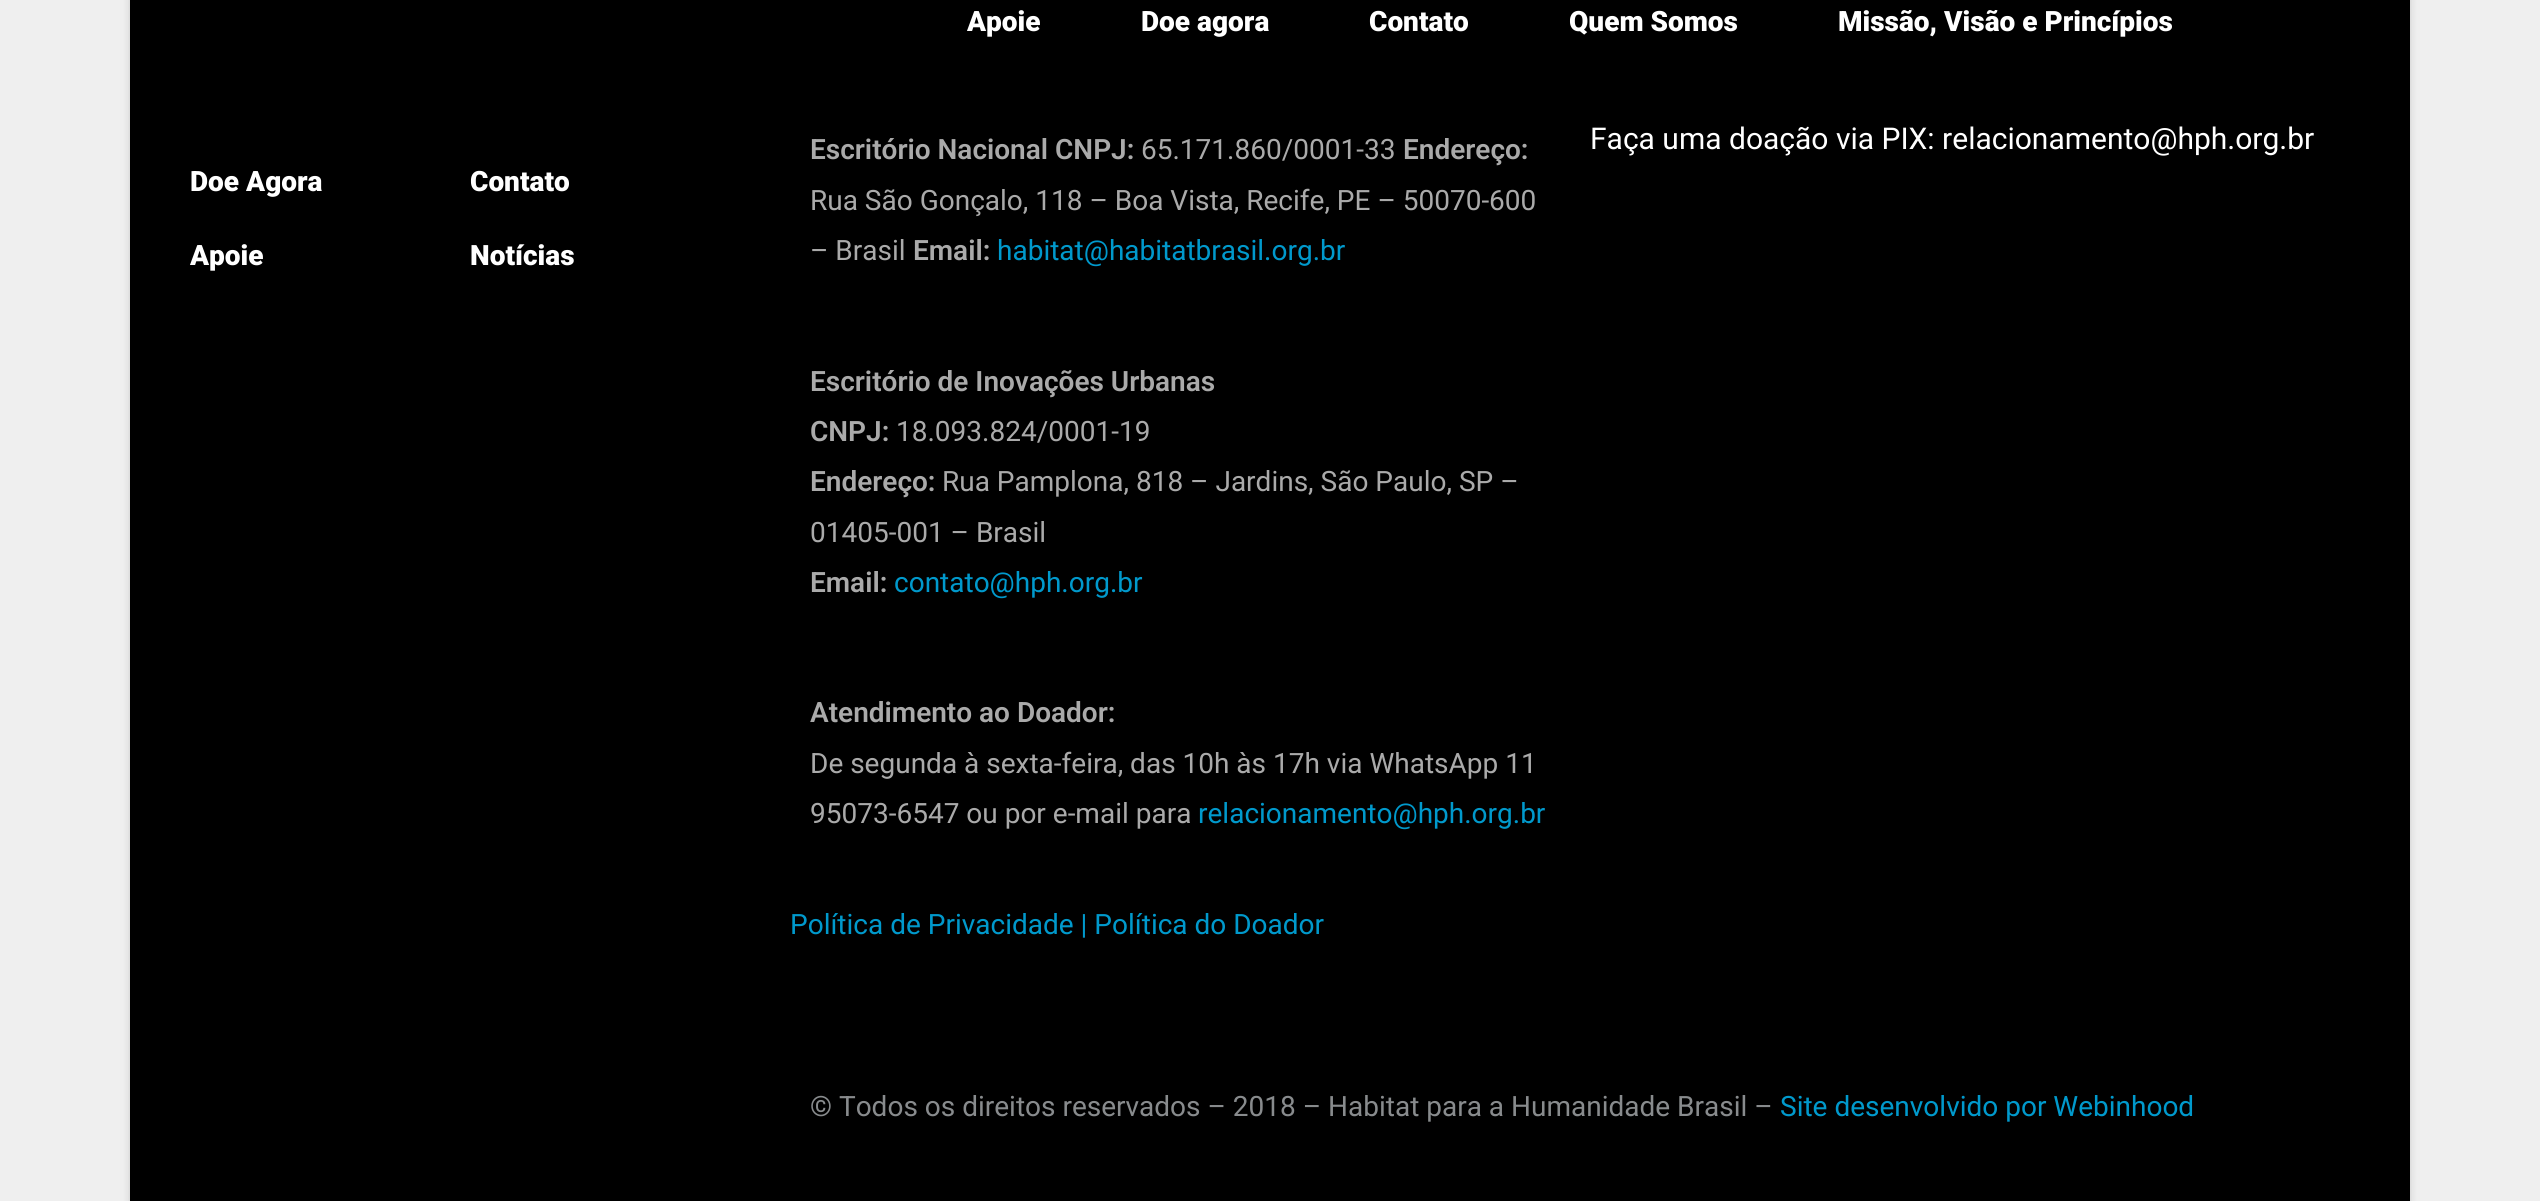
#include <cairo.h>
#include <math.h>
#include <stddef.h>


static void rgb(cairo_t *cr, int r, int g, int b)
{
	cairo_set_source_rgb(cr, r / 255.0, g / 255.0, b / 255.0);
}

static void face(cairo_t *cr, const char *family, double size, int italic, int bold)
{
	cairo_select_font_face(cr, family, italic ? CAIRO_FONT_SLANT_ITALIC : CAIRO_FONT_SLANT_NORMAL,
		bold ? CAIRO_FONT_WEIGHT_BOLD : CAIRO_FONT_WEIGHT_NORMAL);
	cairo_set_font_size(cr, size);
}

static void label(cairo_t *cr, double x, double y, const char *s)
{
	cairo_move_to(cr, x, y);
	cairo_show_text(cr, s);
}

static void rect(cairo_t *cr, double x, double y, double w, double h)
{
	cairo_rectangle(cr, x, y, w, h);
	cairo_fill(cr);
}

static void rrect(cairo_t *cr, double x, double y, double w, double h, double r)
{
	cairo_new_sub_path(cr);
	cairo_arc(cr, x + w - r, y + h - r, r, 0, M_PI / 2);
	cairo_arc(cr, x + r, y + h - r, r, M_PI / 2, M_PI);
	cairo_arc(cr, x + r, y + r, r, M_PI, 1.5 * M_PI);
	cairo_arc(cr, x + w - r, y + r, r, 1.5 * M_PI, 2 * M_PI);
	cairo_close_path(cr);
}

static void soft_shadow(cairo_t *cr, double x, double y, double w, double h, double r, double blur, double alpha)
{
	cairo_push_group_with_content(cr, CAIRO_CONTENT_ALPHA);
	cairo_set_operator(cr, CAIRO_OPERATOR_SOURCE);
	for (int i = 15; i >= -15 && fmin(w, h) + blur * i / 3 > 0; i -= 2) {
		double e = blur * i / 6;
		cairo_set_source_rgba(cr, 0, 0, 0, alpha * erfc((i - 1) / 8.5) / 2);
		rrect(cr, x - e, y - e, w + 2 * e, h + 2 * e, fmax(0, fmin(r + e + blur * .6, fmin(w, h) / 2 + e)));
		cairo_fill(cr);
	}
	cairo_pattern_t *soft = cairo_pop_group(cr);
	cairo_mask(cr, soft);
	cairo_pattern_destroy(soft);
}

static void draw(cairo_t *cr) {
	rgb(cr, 239, 239, 239);
	cairo_paint(cr);
	rgb(cr, 0, 0, 0);
	soft_shadow(cr, 130, -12, 2280, 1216, 0, 4, 0.15);
	rgb(cr, 0, 0, 0);
	rect(cr, 130, 0, 2280, 1201);
	face(cr, "Roboto Black", 28, 0, 0);
	rgb(cr, 255, 255, 255);
	label(cr, 190, 191, "Doe Agora");
	label(cr, 190, 265, "Apoie");
	label(cr, 470, 191, "Contato");
	label(cr, 470, 265, "Notícias");
	label(cr, 967, 31, "Apoie");
	label(cr, 1141, 31, "Doe agora");
	label(cr, 1369, 31, "Contato");
	label(cr, 1569, 31, "Quem Somos");
	label(cr, 1838, 31, "Missão, Visão e Princípios");
	face(cr, "Roboto SemiBold", 28, 0, 0);
	rgb(cr, 170, 170, 170);
	label(cr, 810, 159, "Escritório Nacional CNPJ:");
	face(cr, "Roboto", 28, 0, 0);
	label(cr, 1141, 159, "65.171.860/0001-33");
	face(cr, "Roboto SemiBold", 28, 0, 0);
	label(cr, 1403, 159, "Endereço:");
	face(cr, "Roboto", 28, 0, 0);
	label(cr, 810, 210, "Rua São Gonçalo, 118 – Boa Vista, Recife, PE – 50070-600");
	label(cr, 810, 260, "– Brasil");
	face(cr, "Roboto SemiBold", 28, 0, 0);
	label(cr, 913, 260, "Email:");
	face(cr, "Roboto", 28, 0, 0);
	rgb(cr, 0, 153, 204);
	label(cr, 997, 260, "habitat@habitatbrasil.org.br");
	face(cr, "Roboto SemiBold", 28, 0, 0);
	rgb(cr, 170, 170, 170);
	label(cr, 810, 391, "Escritório de Inovações Urbanas");
	label(cr, 810, 441, "CNPJ:");
	face(cr, "Roboto", 28, 0, 0);
	label(cr, 896, 441, "18.093.824/0001-19");
	face(cr, "Roboto SemiBold", 28, 0, 0);
	label(cr, 810, 491, "Endereço:");
	face(cr, "Roboto", 28, 0, 0);
	label(cr, 942, 491, "Rua Pamplona, 818 – Jardins, São Paulo, SP –");
	label(cr, 810, 542, "01405-001 – Brasil");
	face(cr, "Roboto SemiBold", 28, 0, 0);
	label(cr, 810, 592, "Email:");
	face(cr, "Roboto", 28, 0, 0);
	rgb(cr, 0, 153, 204);
	label(cr, 894, 592, "contato@hph.org.br");
	face(cr, "Roboto SemiBold", 28, 0, 0);
	rgb(cr, 170, 170, 170);
	label(cr, 810, 722, "Atendimento ao Doador:");
	face(cr, "Roboto", 28, 0, 0);
	label(cr, 810, 773, "De segunda à sexta-feira, das 10h às 17h via WhatsApp 11");
	label(cr, 810, 823, "95073-6547 ou por e-mail para");
	rgb(cr, 0, 153, 204);
	label(cr, 1198, 823, "relacionamento@hph.org.br");
	face(cr, "Roboto", 30, 0, 0);
	rgb(cr, 255, 255, 255);
	label(cr, 1590, 149, "Faça uma doação via PIX: relacionamento@hph.org.br");
	face(cr, "Roboto", 28, 0, 0);
	rgb(cr, 0, 153, 204);
	label(cr, 790, 934, "Política de Privacidade | Política do Doador");
	rgb(cr, 136, 139, 141);
	label(cr, 810, 1116, "© Todos os direitos reservados – 2018 – Habitat para a Humanidade Brasil –");
	rgb(cr, 0, 153, 204);
	label(cr, 1780, 1116, "Site desenvolvido por Webinhood");
}

int main(void) {
	cairo_surface_t *surface = cairo_image_surface_create(CAIRO_FORMAT_RGB24, 2540, 1201);
	cairo_t *cr = cairo_create(surface);
	cairo_font_options_t *options = cairo_font_options_create();
	cairo_font_options_set_hint_metrics(options, CAIRO_HINT_METRICS_OFF);
	cairo_font_options_set_hint_style(options, CAIRO_HINT_STYLE_NONE);
	cairo_set_font_options(cr, options);
	cairo_set_miter_limit(cr, 4);
	draw(cr);
	cairo_surface_write_to_png(surface, "render.png");
	cairo_font_options_destroy(options);
	cairo_destroy(cr);
	cairo_surface_destroy(surface);
	return 0;
}
